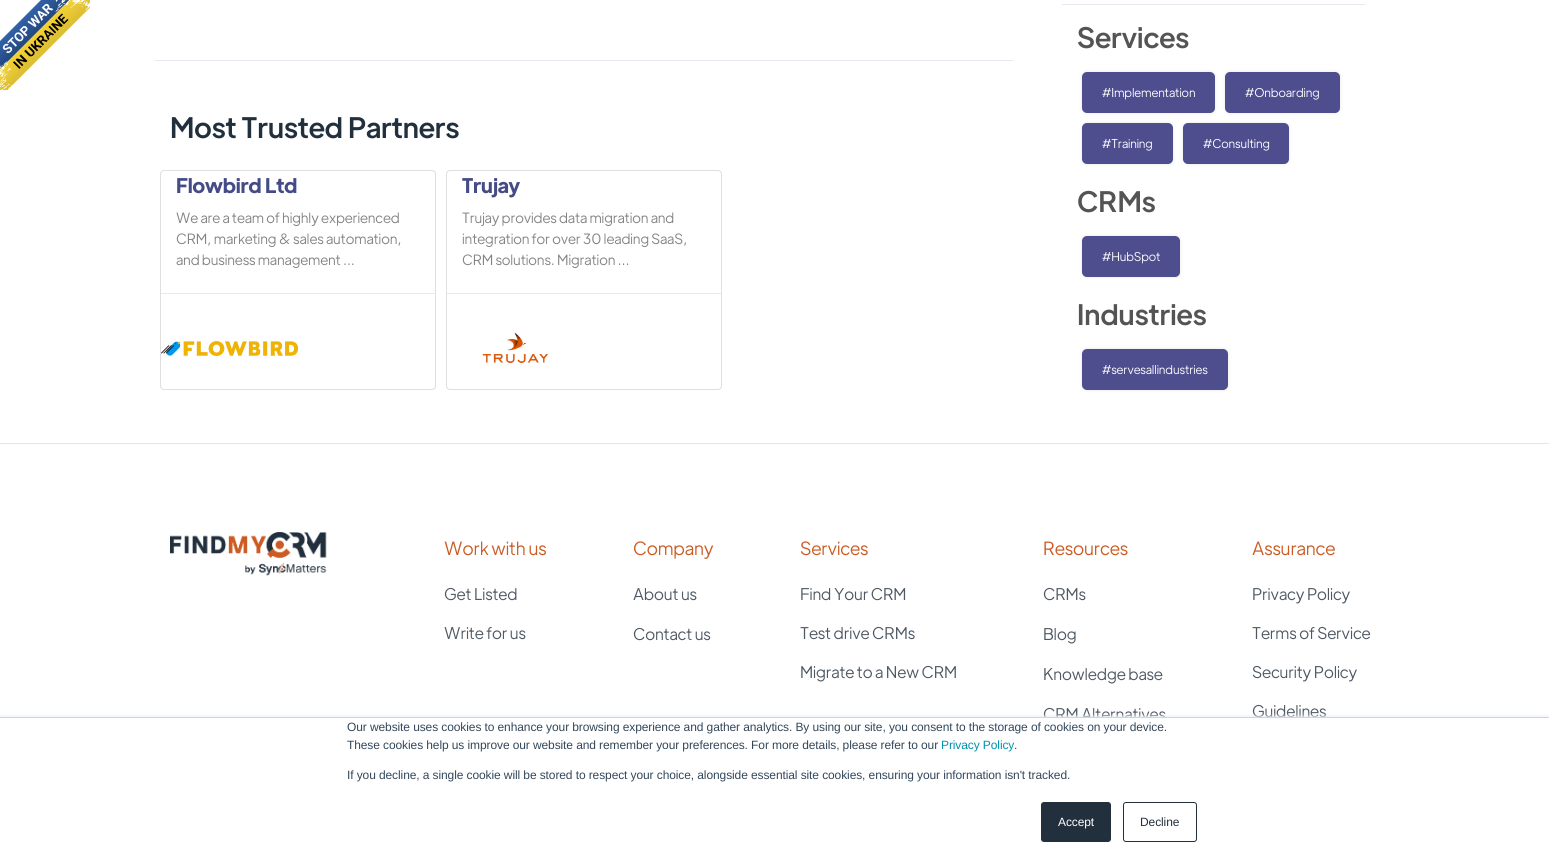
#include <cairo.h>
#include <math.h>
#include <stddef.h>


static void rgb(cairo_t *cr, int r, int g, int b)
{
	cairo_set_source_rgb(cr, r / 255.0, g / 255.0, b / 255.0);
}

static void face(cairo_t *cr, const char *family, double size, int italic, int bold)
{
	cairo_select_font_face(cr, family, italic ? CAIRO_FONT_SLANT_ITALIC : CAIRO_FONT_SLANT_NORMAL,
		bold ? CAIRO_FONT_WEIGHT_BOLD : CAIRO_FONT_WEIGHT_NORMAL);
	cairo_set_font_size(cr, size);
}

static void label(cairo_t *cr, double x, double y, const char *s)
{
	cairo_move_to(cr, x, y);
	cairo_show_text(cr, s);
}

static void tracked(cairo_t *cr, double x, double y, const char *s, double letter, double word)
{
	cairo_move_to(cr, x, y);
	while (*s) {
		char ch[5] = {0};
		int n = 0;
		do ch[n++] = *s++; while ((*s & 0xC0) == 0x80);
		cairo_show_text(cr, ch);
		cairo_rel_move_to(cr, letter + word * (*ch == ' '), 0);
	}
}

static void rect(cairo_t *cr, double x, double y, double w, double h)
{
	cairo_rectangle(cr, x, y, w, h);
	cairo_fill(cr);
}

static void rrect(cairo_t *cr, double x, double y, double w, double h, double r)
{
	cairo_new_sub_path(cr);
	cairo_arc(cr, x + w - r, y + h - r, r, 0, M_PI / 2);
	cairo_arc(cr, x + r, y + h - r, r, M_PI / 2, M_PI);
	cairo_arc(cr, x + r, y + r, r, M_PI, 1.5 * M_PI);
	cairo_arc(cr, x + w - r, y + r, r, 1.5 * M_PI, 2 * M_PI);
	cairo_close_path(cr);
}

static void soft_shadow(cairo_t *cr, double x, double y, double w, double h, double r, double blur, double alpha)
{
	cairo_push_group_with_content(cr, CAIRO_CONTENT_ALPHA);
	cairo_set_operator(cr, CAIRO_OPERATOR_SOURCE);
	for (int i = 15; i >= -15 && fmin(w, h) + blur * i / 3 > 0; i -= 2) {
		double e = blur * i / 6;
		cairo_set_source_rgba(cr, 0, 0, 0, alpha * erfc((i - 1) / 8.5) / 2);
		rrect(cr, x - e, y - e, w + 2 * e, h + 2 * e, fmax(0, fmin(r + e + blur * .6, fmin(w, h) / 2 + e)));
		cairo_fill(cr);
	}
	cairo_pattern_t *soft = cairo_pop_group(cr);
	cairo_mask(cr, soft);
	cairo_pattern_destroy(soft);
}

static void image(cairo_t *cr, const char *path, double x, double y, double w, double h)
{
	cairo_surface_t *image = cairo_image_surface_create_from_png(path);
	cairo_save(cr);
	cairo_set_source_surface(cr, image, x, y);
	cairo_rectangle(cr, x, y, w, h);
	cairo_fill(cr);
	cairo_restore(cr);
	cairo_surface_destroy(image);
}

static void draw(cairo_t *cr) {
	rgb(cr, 255, 255, 255);
	cairo_paint(cr);
	image(cr, "image0.png", 0, 0, 90, 90);
	rgb(cr, 231, 232, 241);
	rect(cr, 155, 60, 858, 1);
	face(cr, "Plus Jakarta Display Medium", 28, 0, 0);
	rgb(cr, 34, 47, 61);
	label(cr, 170, 138, "Most Trusted Partners");
	rrect(cr, 160.5, 170.5, 275, 219, 3.5);
	rgb(cr, 223, 223, 223);
	cairo_set_line_width(cr, 1);
	cairo_stroke(cr);
	face(cr, "Plus Jakarta Display", 20, 0, 1);
	rgb(cr, 68, 75, 134);
	tracked(cr, 176, 193, "Flowbird Ltd", -0.1, 0);
	face(cr, "Plus Jakarta Display Light", 14, 0, 0);
	rgb(cr, 131, 131, 131);
	tracked(cr, 176, 223, "We are a team of highly experienced", -0.1, 0);
	tracked(cr, 176, 244, "CRM, marketing & sales automation,", -0.1, 0);
	tracked(cr, 176, 265, "and business management ...", -0.1, 0);
	rgb(cr, 231, 232, 241);
	rect(cr, 161, 293, 274, 1);
	image(cr, "image1.png", 161, 341, 137, 15);
	rrect(cr, 446.5, 170.5, 275, 219, 3.5);
	rgb(cr, 223, 223, 223);
	cairo_stroke(cr);
	face(cr, "Plus Jakarta Display", 20, 0, 1);
	rgb(cr, 68, 75, 134);
	tracked(cr, 462, 193, "Trujay", -0.1, 0);
	face(cr, "Plus Jakarta Display Light", 14, 0, 0);
	rgb(cr, 131, 131, 131);
	tracked(cr, 462, 223, "Trujay provides data migration and", -0.1, 0);
	tracked(cr, 462, 244, "integration for over 30 leading SaaS,", -0.1, 0);
	tracked(cr, 462, 265, "CRM solutions. Migration ...", -0.1, 0);
	rgb(cr, 231, 232, 241);
	rect(cr, 447, 293, 274, 1);
	image(cr, "image2.png", 482, 332, 67, 31);
	rect(cr, 1062, 4, 303, 1);
	face(cr, "Plus Jakarta Display Medium", 28, 0, 0);
	rgb(cr, 85, 84, 84);
	label(cr, 1077, 48, "Services");
	rgb(cr, 0, 0, 0);
	soft_shadow(cr, 1082, 72, 133, 41, 5, 2, 0.1);
	rgb(cr, 78, 78, 143);
	rrect(cr, 1082, 72, 133, 41, 5);
	cairo_fill(cr);
	face(cr, "Plus Jakarta Display Light", 12, 0, 0);
	rgb(cr, 255, 255, 255);
	tracked(cr, 1102, 97, "#Implementation", -0.1, 0);
	rgb(cr, 0, 0, 0);
	soft_shadow(cr, 1225, 72, 115, 41, 5, 2, 0.1);
	rgb(cr, 78, 78, 143);
	rrect(cr, 1225, 72, 115, 41, 5);
	cairo_fill(cr);
	rgb(cr, 255, 255, 255);
	tracked(cr, 1245, 97, "#Onboarding", -0.1, 0);
	rgb(cr, 0, 0, 0);
	soft_shadow(cr, 1082, 123, 91, 41, 5, 2, 0.1);
	rgb(cr, 78, 78, 143);
	rrect(cr, 1082, 123, 91, 41, 5);
	cairo_fill(cr);
	rgb(cr, 255, 255, 255);
	tracked(cr, 1102, 148, "#Training", -0.1, 0);
	rgb(cr, 0, 0, 0);
	soft_shadow(cr, 1183, 123, 106, 41, 5, 2, 0.1);
	rgb(cr, 78, 78, 143);
	rrect(cr, 1183, 123, 106, 41, 5);
	cairo_fill(cr);
	rgb(cr, 255, 255, 255);
	tracked(cr, 1203, 148, "#Consulting", -0.1, 0);
	face(cr, "Plus Jakarta Display Medium", 28, 0, 0);
	rgb(cr, 85, 84, 84);
	label(cr, 1077, 212, "CRMs");
	rgb(cr, 0, 0, 0);
	soft_shadow(cr, 1082, 236, 98, 41, 5, 2, 0.1);
	rgb(cr, 78, 78, 143);
	rrect(cr, 1082, 236, 98, 41, 5);
	cairo_fill(cr);
	face(cr, "Plus Jakarta Display Light", 12, 0, 0);
	rgb(cr, 255, 255, 255);
	tracked(cr, 1102, 261, "#HubSpot", -0.1, 0);
	face(cr, "Plus Jakarta Display Medium", 28, 0, 0);
	rgb(cr, 85, 84, 84);
	label(cr, 1077, 325, "Industries");
	rgb(cr, 0, 0, 0);
	soft_shadow(cr, 1082, 349, 146, 41, 5, 2, 0.1);
	rgb(cr, 78, 78, 143);
	rrect(cr, 1082, 349, 146, 41, 5);
	cairo_fill(cr);
	face(cr, "Plus Jakarta Display Light", 12, 0, 0);
	rgb(cr, 255, 255, 255);
	tracked(cr, 1102, 374, "#servesallindustries", -0.1, 0);
	rgb(cr, 228, 228, 238);
	rect(cr, 0, 443, 1549, 1);
	image(cr, "image3.png", 170, 532, 157, 44);
	face(cr, "Plus Jakarta Display Light", 18, 0, 0);
	rgb(cr, 204, 91, 35);
	tracked(cr, 444, 555, "Work with us", -0.1, 0);
	face(cr, "Plus Jakarta Display Light", 16, 0, 0);
	rgb(cr, 78, 88, 99);
	tracked(cr, 444, 600, "Get Listed", -0.1, 0);
	tracked(cr, 444, 639, "Write for us", -0.1, 0);
	face(cr, "Plus Jakarta Display Light", 18, 0, 0);
	rgb(cr, 204, 91, 35);
	tracked(cr, 633, 555, "Company", -0.1, 0);
	face(cr, "Plus Jakarta Display Light", 16, 0, 0);
	rgb(cr, 78, 88, 99);
	tracked(cr, 633, 600, "About us", -0.1, 0);
	tracked(cr, 633, 640, "Contact us", -0.1, 0);
	face(cr, "Plus Jakarta Display Light", 18, 0, 0);
	rgb(cr, 204, 91, 35);
	tracked(cr, 800, 555, "Services", -0.1, 0);
	face(cr, "Plus Jakarta Display Light", 16, 0, 0);
	rgb(cr, 78, 88, 99);
	tracked(cr, 800, 600, "Find Your CRM", -0.1, 0);
	tracked(cr, 800, 639, "Test drive CRMs", -0.1, 0);
	tracked(cr, 800, 678, "Migrate to a New CRM", -0.1, 0);
	face(cr, "Plus Jakarta Display Light", 18, 0, 0);
	rgb(cr, 204, 91, 35);
	tracked(cr, 1043, 555, "Resources", -0.1, 0);
	face(cr, "Plus Jakarta Display Light", 16, 0, 0);
	rgb(cr, 78, 88, 99);
	tracked(cr, 1043, 600, "CRMs", -0.1, 0);
	tracked(cr, 1043, 640, "Blog", -0.1, 0);
	tracked(cr, 1043, 680, "Knowledge base", -0.1, 0);
	tracked(cr, 1043, 720, "CRM Alternatives", -0.1, 0);
	face(cr, "Plus Jakarta Display Light", 18, 0, 0);
	rgb(cr, 204, 91, 35);
	tracked(cr, 1252, 555, "Assurance", -0.1, 0);
	face(cr, "Plus Jakarta Display Light", 16, 0, 0);
	rgb(cr, 78, 88, 99);
	tracked(cr, 1252, 600, "Privacy Policy", -0.1, 0);
	tracked(cr, 1252, 639, "Terms of Service", -0.1, 0);
	tracked(cr, 1252, 678, "Security Policy", -0.1, 0);
	tracked(cr, 1252, 717, "Guidelines", -0.1, 0);
	rgb(cr, 234, 240, 246);
	soft_shadow(cr, 0, 716, 1549, 131, 0, 1.5, 1);
	rgb(cr, 255, 255, 255);
	rect(cr, 0, 718, 1549, 130);
	rgb(cr, 203, 214, 226);
	rect(cr, 0, 717, 1549, 1);
	face(cr, "Liberation Sans", 12, 0, 0);
	rgb(cr, 51, 71, 91);
	tracked(cr, 347, 731, "Our website uses cookies to enhance your browsing experience and gather analytics. By using our site, you consent to the storage of cookies on your device.", -0.1, 0);
	tracked(cr, 347, 749, "These cookies help us improve our website and remember your preferences. For more details, please refer to our", -0.1, 0);
	rgb(cr, 0, 145, 174);
	tracked(cr, 941, 749, "Privacy Policy", -0.1, 0);
	rgb(cr, 51, 71, 91);
	tracked(cr, 1014, 749, ".", -0.1, 0);
	tracked(cr, 347, 779, "If you decline, a single cookie will be stored to respect your choice, alongside essential site cookies, ensuring your information isn't tracked.", -0.1, 0);
	rgb(cr, 34, 47, 61);
	rrect(cr, 1041.5, 802.5, 69, 39, 2.5);
	cairo_fill_preserve(cr);
	cairo_stroke(cr);
	rgb(cr, 255, 255, 255);
	tracked(cr, 1058, 826, "Accept", -0.1, 0);
	rrect(cr, 1123.5, 802.5, 73, 39, 2.5);
	rgb(cr, 34, 47, 61);
	cairo_stroke(cr);
	tracked(cr, 1140, 826, "Decline", -0.1, 0);
}

int main(void) {
	cairo_surface_t *surface = cairo_image_surface_create(CAIRO_FORMAT_RGB24, 1549, 848);
	cairo_t *cr = cairo_create(surface);
	cairo_font_options_t *options = cairo_font_options_create();
	cairo_font_options_set_hint_metrics(options, CAIRO_HINT_METRICS_OFF);
	cairo_font_options_set_hint_style(options, CAIRO_HINT_STYLE_NONE);
	cairo_set_font_options(cr, options);
	cairo_set_miter_limit(cr, 4);
	draw(cr);
	cairo_surface_write_to_png(surface, "render.png");
	cairo_font_options_destroy(options);
	cairo_destroy(cr);
	cairo_surface_destroy(surface);
	return 0;
}
